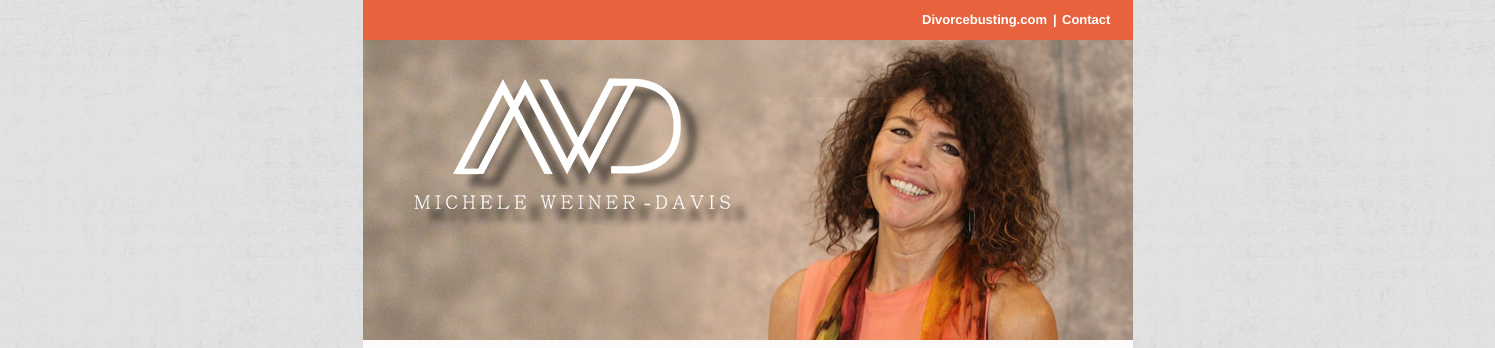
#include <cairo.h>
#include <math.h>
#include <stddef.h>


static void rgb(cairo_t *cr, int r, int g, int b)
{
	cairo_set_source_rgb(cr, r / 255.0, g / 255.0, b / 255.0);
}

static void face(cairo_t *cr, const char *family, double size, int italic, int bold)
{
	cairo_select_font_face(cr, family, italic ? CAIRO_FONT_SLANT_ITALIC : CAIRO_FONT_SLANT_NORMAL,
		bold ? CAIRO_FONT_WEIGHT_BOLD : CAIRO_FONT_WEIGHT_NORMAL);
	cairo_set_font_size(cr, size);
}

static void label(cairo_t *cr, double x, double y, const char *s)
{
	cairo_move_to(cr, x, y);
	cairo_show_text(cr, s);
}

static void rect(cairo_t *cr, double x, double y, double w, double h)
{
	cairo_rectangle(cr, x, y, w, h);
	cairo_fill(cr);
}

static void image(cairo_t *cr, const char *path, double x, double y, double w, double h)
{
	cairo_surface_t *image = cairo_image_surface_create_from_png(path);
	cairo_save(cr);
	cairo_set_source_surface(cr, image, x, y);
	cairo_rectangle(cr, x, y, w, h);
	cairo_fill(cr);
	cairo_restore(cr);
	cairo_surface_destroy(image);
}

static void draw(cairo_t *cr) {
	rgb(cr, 255, 255, 255);
	cairo_paint(cr);
	image(cr, "image0.png", 0, 0, 1495, 348);
	rgb(cr, 252, 251, 249);
	rect(cr, 363, 340, 770, 8);
	rgb(cr, 232, 98, 61);
	rect(cr, 363, 0, 770, 40);
	face(cr, "Liberation Sans", 13, 0, 1);
	rgb(cr, 255, 255, 255);
	label(cr, 922, 24, "Divorcebusting.com");
	label(cr, 1053, 24, "|");
	label(cr, 1062, 24, "Contact");
	image(cr, "image1.png", 363, 40, 770, 300);
}

int main(void) {
	cairo_surface_t *surface = cairo_image_surface_create(CAIRO_FORMAT_RGB24, 1495, 348);
	cairo_t *cr = cairo_create(surface);
	cairo_font_options_t *options = cairo_font_options_create();
	cairo_font_options_set_hint_metrics(options, CAIRO_HINT_METRICS_OFF);
	cairo_font_options_set_hint_style(options, CAIRO_HINT_STYLE_NONE);
	cairo_set_font_options(cr, options);
	cairo_set_miter_limit(cr, 4);
	draw(cr);
	cairo_surface_write_to_png(surface, "render.png");
	cairo_font_options_destroy(options);
	cairo_destroy(cr);
	cairo_surface_destroy(surface);
	return 0;
}
